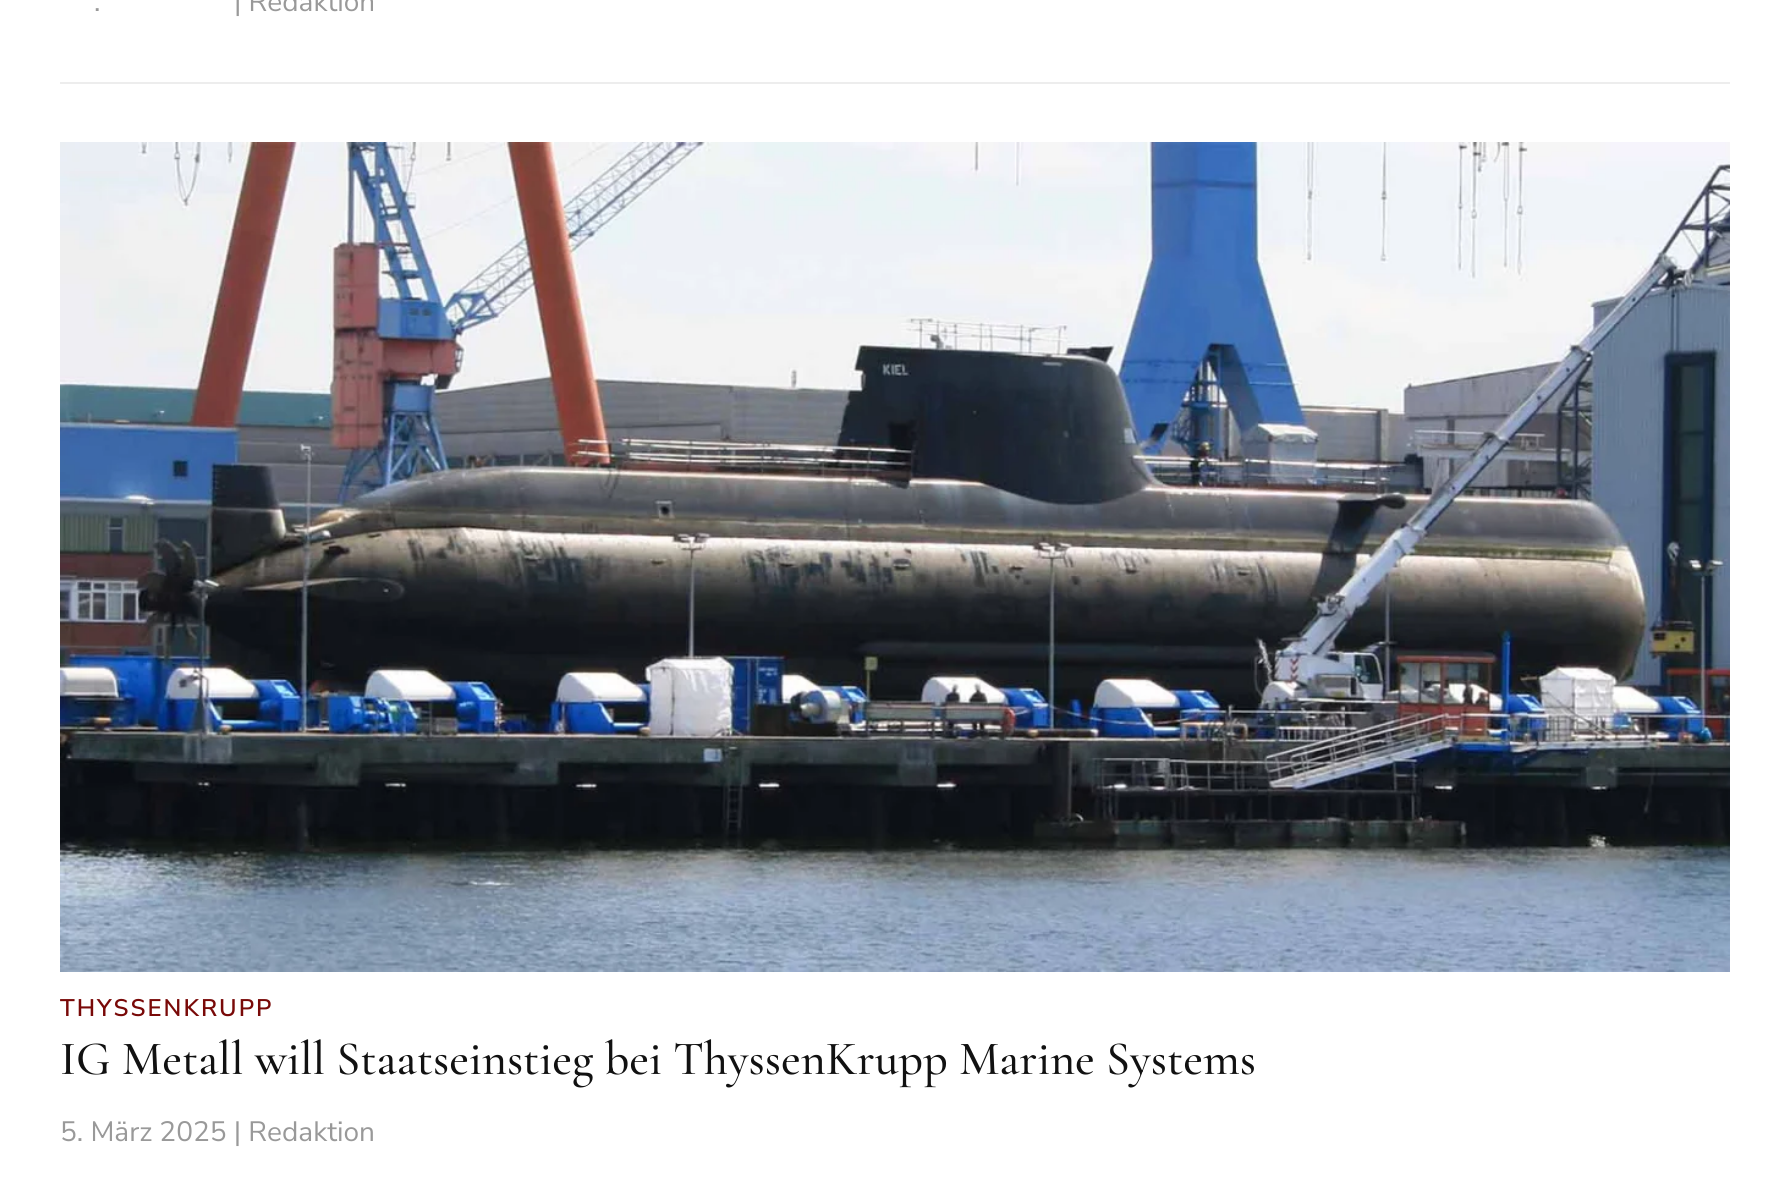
#include <cairo.h>
#include <math.h>
#include <stddef.h>


static void rgb(cairo_t *cr, int r, int g, int b)
{
	cairo_set_source_rgb(cr, r / 255.0, g / 255.0, b / 255.0);
}

static void face(cairo_t *cr, const char *family, double size, int italic, int bold)
{
	cairo_select_font_face(cr, family, italic ? CAIRO_FONT_SLANT_ITALIC : CAIRO_FONT_SLANT_NORMAL,
		bold ? CAIRO_FONT_WEIGHT_BOLD : CAIRO_FONT_WEIGHT_NORMAL);
	cairo_set_font_size(cr, size);
}

static void label(cairo_t *cr, double x, double y, const char *s)
{
	cairo_move_to(cr, x, y);
	cairo_show_text(cr, s);
}

static void tracked(cairo_t *cr, double x, double y, const char *s, double letter, double word)
{
	cairo_move_to(cr, x, y);
	while (*s) {
		char ch[5] = {0};
		int n = 0;
		do ch[n++] = *s++; while ((*s & 0xC0) == 0x80);
		cairo_show_text(cr, ch);
		cairo_rel_move_to(cr, letter + word * (*ch == ' '), 0);
	}
}

static void rect(cairo_t *cr, double x, double y, double w, double h)
{
	cairo_rectangle(cr, x, y, w, h);
	cairo_fill(cr);
}

static void image(cairo_t *cr, const char *path, double x, double y, double w, double h)
{
	cairo_surface_t *image = cairo_image_surface_create_from_png(path);
	cairo_save(cr);
	cairo_set_source_surface(cr, image, x, y);
	cairo_rectangle(cr, x, y, w, h);
	cairo_fill(cr);
	cairo_restore(cr);
	cairo_surface_destroy(image);
}

static void draw(cairo_t *cr) {
	rgb(cr, 255, 255, 255);
	cairo_paint(cr);
	face(cr, "Nunito Sans ExtraLight", 28, 0, 0);
	rgb(cr, 153, 153, 153);
	label(cr, 94, 11, ".");
	label(cr, 234, 11, "| Redaktion");
	rgb(cr, 237, 237, 237);
	rect(cr, 60, 82, 1670, 2);
	image(cr, "image0.png", 60, 142, 1670, 830);
	face(cr, "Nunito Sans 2 ExtraLight", 24, 0, 0);
	rgb(cr, 121, 9, 8);
	tracked(cr, 60, 1016, "THYSSENKRUPP", 2, 0);
	face(cr, "Cormorant Garamond Light", 48, 0, 0);
	rgb(cr, 17, 17, 17);
	label(cr, 60, 1074, "IG Metall will Staatseinstieg bei ThyssenKrupp Marine Systems");
	face(cr, "Nunito Sans ExtraLight", 28, 0, 0);
	rgb(cr, 153, 153, 153);
	label(cr, 60, 1141, "5. März 2025 | Redaktion");
}

int main(void) {
	cairo_surface_t *surface = cairo_image_surface_create(CAIRO_FORMAT_RGB24, 1789, 1182);
	cairo_t *cr = cairo_create(surface);
	cairo_font_options_t *options = cairo_font_options_create();
	cairo_font_options_set_hint_metrics(options, CAIRO_HINT_METRICS_OFF);
	cairo_font_options_set_hint_style(options, CAIRO_HINT_STYLE_NONE);
	cairo_set_font_options(cr, options);
	cairo_set_miter_limit(cr, 4);
	draw(cr);
	cairo_surface_write_to_png(surface, "render.png");
	cairo_font_options_destroy(options);
	cairo_destroy(cr);
	cairo_surface_destroy(surface);
	return 0;
}
